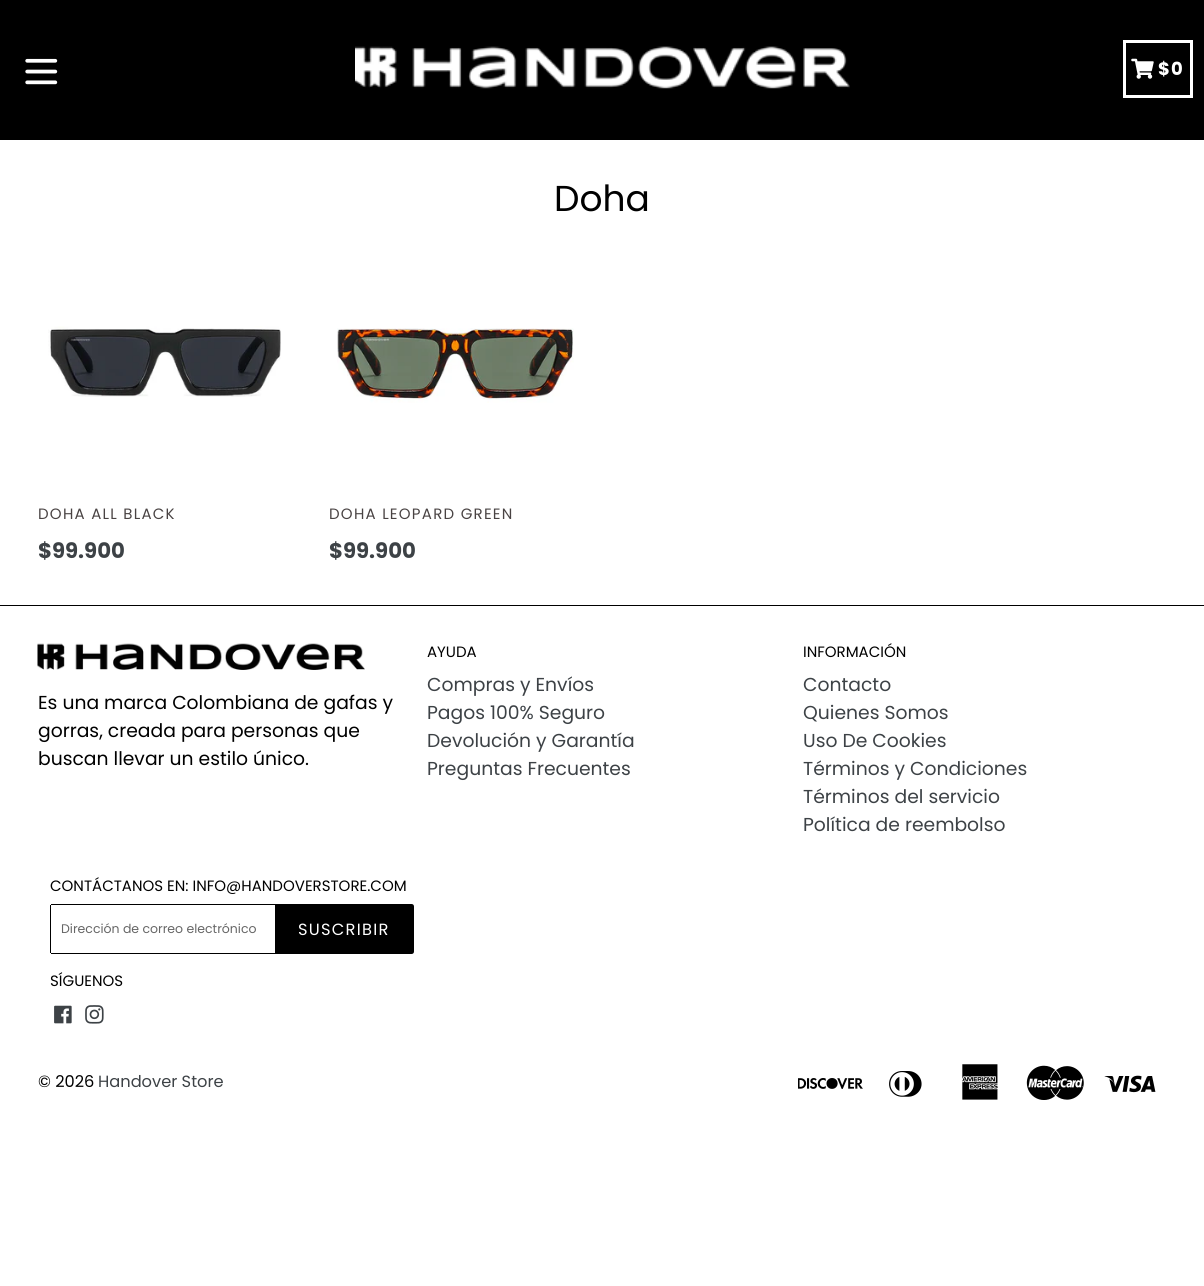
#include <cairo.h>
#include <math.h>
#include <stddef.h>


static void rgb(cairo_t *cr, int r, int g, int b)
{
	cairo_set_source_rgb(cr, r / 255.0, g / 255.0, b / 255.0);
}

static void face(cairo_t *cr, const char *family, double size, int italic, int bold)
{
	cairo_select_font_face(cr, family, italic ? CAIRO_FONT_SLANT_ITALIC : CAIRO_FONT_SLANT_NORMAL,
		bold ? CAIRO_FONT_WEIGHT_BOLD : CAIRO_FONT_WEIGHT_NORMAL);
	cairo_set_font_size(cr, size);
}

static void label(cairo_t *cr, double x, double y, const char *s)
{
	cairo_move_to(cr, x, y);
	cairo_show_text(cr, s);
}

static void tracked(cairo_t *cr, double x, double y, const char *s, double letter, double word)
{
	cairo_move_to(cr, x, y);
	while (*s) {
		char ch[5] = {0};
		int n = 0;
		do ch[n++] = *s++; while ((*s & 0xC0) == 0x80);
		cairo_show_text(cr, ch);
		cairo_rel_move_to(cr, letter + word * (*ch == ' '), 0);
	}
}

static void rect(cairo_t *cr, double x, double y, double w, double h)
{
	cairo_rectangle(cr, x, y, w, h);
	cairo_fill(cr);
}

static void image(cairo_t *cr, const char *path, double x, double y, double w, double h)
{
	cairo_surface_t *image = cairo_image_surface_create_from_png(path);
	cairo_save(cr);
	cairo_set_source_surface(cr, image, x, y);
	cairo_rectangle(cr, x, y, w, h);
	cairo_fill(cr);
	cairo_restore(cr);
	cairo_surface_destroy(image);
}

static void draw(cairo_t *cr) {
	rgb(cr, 255, 255, 255);
	cairo_paint(cr);
	rgb(cr, 0, 0, 0);
	rect(cr, 0, 0, 1204, 140);
	image(cr, "image0.png", 25, 58, 33, 27);
	image(cr, "image1.png", 355, 46, 495, 43);
	cairo_rectangle(cr, 1124.5, 41.5, 67, 55);
	rgb(cr, 255, 255, 255);
	cairo_set_line_width(cr, 3);
	cairo_stroke(cr);
	image(cr, "image2.png", 1131, 58, 23, 21);
	face(cr, "Poppins", 18, 0, 1);
	tracked(cr, 1158, 75, "$0", 1.25, 0);
	face(cr, "Poppins", 36, 0, 0);
	rgb(cr, 0, 0, 0);
	label(cr, 554, 211, "Doha");
	image(cr, "image3.png", 48, 326, 233, 71);
	face(cr, "Poppins", 15, 0, 0);
	rgb(cr, 73, 67, 67);
	tracked(cr, 38, 519, "DOHA ALL BLACK", 1.25, 0);
	face(cr, "Poppins", 21.25, 0, 1);
	rgb(cr, 61, 66, 70);
	label(cr, 38, 558, "$99.900");
	image(cr, "image4.png", 337, 328, 237, 75);
	face(cr, "Poppins", 15, 0, 0);
	rgb(cr, 73, 67, 67);
	tracked(cr, 329, 519, "DOHA LEOPARD GREEN", 1.25, 0);
	face(cr, "Poppins", 21.25, 0, 1);
	rgb(cr, 61, 66, 70);
	label(cr, 329, 558, "$99.900");
	rgb(cr, 0, 0, 0);
	rect(cr, 0, 605, 1204, 1);
	image(cr, "image5.png", 37, 643, 328, 27);
	face(cr, "Poppins", 18.75, 0, 0);
	label(cr, 38, 709, "Es una marca Colombiana de gafas y");
	label(cr, 38, 737, "gorras, creada para personas que");
	label(cr, 38, 765, "buscan llevar un estilo único.");
	face(cr, "Poppins", 15, 0, 0);
	label(cr, 427, 657, "AYUDA");
	face(cr, "Poppins", 18.75, 0, 0);
	rgb(cr, 61, 66, 70);
	label(cr, 427, 691, "Compras y Envíos");
	label(cr, 427, 719, "Pagos 100% Seguro");
	label(cr, 427, 747, "Devolución y Garantía");
	label(cr, 427, 775, "Preguntas Frecuentes");
	face(cr, "Poppins", 15, 0, 0);
	rgb(cr, 0, 0, 0);
	label(cr, 803, 657, "INFORMACIÓN");
	face(cr, "Poppins", 18.75, 0, 0);
	rgb(cr, 61, 66, 70);
	label(cr, 803, 691, "Contacto");
	label(cr, 803, 719, "Quienes Somos");
	label(cr, 803, 747, "Uso De Cookies");
	label(cr, 803, 775, "Términos y Condiciones");
	label(cr, 803, 803, "Términos del servicio");
	label(cr, 803, 831, "Política de reembolso");
	face(cr, "Poppins", 15, 0, 0);
	rgb(cr, 0, 0, 0);
	label(cr, 50, 891, "CONTÁCTANOS EN: INFO@HANDOVERSTORE.COM");
	rect(cr, 51, 904, 224, 1);
	rect(cr, 51, 953, 224, 1);
	rect(cr, 50, 905, 1, 48);
	face(cr, "Poppins", 12.5, 0, 0);
	rgb(cr, 102, 102, 102);
	label(cr, 61, 933, "Dirección de correo electrónico");
	rgb(cr, 0, 0, 0);
	cairo_new_path(cr);
	cairo_move_to(cr, 275, 904);
	cairo_line_to(cr, 411.5, 904);
	cairo_curve_to(cr, 413, 904, 414, 905, 414, 906.5);
	cairo_line_to(cr, 414, 951.5);
	cairo_curve_to(cr, 414, 953, 413, 954, 411.5, 954);
	cairo_line_to(cr, 275, 954);
	cairo_close_path(cr);
	cairo_fill(cr);
	face(cr, "Poppins", 16.25, 0, 0);
	rgb(cr, 255, 255, 255);
	tracked(cr, 298, 935, "SUSCRIBIR", 1.25, 0);
	face(cr, "Poppins", 15, 0, 0);
	rgb(cr, 0, 0, 0);
	label(cr, 50, 986, "SÍGUENOS");
	image(cr, "image6.png", 54, 1005, 18, 19);
	image(cr, "image7.png", 85, 1005, 19, 19);
	face(cr, "Poppins", 16.25, 0, 0);
	label(cr, 38, 1087, "© 2026");
	rgb(cr, 61, 66, 70);
	label(cr, 98, 1087, "Handover Store");
	image(cr, "image8.png", 798, 1078, 65, 11);
	image(cr, "image9.png", 889, 1071, 33, 26);
	image(cr, "image10.png", 962, 1064, 36, 36);
	image(cr, "image11.png", 1026, 1065, 58, 35);
	image(cr, "image12.png", 1104, 1075, 52, 18);
}

int main(void) {
	cairo_surface_t *surface = cairo_image_surface_create(CAIRO_FORMAT_RGB24, 1204, 1286);
	cairo_t *cr = cairo_create(surface);
	cairo_font_options_t *options = cairo_font_options_create();
	cairo_font_options_set_hint_metrics(options, CAIRO_HINT_METRICS_OFF);
	cairo_font_options_set_hint_style(options, CAIRO_HINT_STYLE_NONE);
	cairo_set_font_options(cr, options);
	cairo_set_miter_limit(cr, 4);
	draw(cr);
	cairo_surface_write_to_png(surface, "render.png");
	cairo_font_options_destroy(options);
	cairo_destroy(cr);
	cairo_surface_destroy(surface);
	return 0;
}
